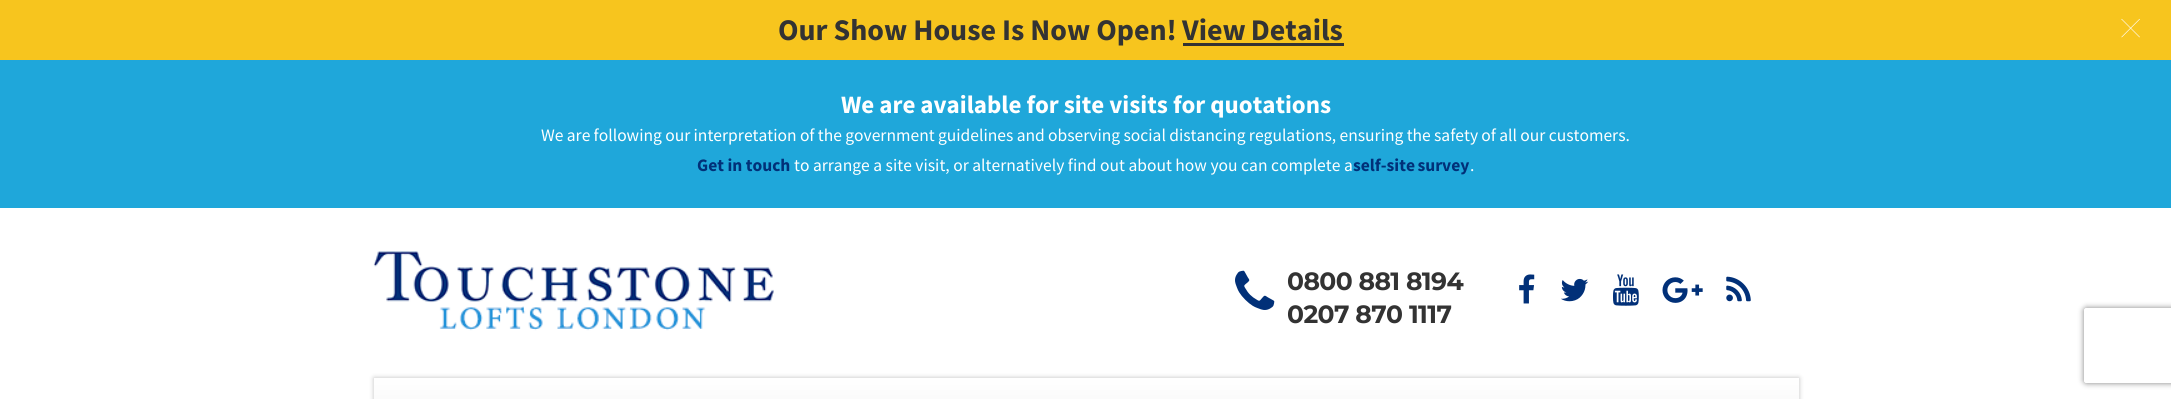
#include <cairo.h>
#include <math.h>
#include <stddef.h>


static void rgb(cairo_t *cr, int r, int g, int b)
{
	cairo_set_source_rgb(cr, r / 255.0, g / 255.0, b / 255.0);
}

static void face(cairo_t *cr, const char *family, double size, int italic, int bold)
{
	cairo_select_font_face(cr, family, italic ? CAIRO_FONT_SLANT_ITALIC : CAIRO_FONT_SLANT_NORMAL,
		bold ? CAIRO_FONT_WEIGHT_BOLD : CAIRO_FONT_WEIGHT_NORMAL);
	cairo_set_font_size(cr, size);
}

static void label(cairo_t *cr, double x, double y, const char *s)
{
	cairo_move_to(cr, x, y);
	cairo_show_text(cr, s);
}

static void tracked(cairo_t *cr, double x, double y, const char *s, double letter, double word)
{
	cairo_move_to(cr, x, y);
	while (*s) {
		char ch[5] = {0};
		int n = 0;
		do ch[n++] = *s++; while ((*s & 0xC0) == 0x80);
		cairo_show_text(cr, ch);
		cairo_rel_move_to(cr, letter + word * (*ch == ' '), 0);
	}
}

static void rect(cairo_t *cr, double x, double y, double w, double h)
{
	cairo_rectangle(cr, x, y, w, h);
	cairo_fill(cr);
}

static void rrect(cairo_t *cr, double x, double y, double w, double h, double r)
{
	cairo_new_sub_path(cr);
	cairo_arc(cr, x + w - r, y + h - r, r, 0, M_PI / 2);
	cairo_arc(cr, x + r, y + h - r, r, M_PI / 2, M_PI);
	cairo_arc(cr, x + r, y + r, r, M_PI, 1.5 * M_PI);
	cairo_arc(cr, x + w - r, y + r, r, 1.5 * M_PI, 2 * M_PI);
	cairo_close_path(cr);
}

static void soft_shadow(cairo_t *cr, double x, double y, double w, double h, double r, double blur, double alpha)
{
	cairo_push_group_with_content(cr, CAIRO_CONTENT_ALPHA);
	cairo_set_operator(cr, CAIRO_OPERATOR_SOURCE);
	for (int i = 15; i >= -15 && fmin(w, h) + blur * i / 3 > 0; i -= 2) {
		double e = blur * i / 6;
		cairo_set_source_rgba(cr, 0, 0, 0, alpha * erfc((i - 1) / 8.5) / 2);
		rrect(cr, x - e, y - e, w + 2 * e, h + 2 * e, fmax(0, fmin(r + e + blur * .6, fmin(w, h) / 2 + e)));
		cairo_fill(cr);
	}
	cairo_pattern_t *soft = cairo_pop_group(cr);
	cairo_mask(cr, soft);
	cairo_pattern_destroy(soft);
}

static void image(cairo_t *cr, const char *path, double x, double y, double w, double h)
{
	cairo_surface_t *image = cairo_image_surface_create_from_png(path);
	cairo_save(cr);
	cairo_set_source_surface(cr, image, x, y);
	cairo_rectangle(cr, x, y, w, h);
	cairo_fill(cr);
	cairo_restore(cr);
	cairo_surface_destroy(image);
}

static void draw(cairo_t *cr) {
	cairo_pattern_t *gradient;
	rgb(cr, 255, 255, 255);
	cairo_paint(cr);
	rgb(cr, 247, 197, 30);
	rect(cr, 0, 0, 2171, 60);
	face(cr, "Source Sans Pro", 30, 0, 1);
	rgb(cr, 51, 51, 51);
	label(cr, 778, 40, "Our Show House Is Now Open!");
	tracked(cr, 1182, 40, "View Details", 0, -1);
	rect(cr, 1183, 43, 161, 3);
	image(cr, "image0.png", 2121, 18, 19, 20);
	rgb(cr, 31, 167, 218);
	rect(cr, 0, 60, 2171, 148);
	face(cr, "Source Sans Pro", 25, 0, 1);
	rgb(cr, 255, 255, 255);
	label(cr, 841, 113, "We are available for site visits for quotations");
	face(cr, "Source Sans Pro", 17.5, 0, 0);
	tracked(cr, 541, 141, "We are following our interpretation of the government guidelines and observing social distancing regulations, ensuring the safety of all our customers.", 0, -0.2);
	face(cr, "Source Sans Pro", 17.5, 0, 1);
	rgb(cr, 1, 48, 120);
	label(cr, 697, 171, "Get in touch");
	face(cr, "Source Sans Pro", 17.5, 0, 0);
	rgb(cr, 255, 255, 255);
	label(cr, 794, 171, "to arrange a site visit, or alternatively find out about how you can complete a");
	face(cr, "Source Sans Pro", 17.5, 0, 1);
	rgb(cr, 1, 48, 120);
	tracked(cr, 1353, 171, "self-site survey", 0, -1);
	face(cr, "Source Sans Pro", 17.5, 0, 0);
	rgb(cr, 255, 255, 255);
	label(cr, 1470, 171, ".");
	image(cr, "image1.png", 373, 251, 401, 80);
	image(cr, "image2.png", 1235, 270, 40, 40);
	face(cr, "Montserrat Thin", 25, 0, 0);
	rgb(cr, 51, 51, 51);
	tracked(cr, 1287, 290, "0800 881 8194", -0.6, 0);
	tracked(cr, 1287, 323, "0207 870 1117", -0.6, 0);
	image(cr, "image3.png", 1519, 274, 16, 30);
	image(cr, "image4.png", 1561, 278, 28, 24);
	image(cr, "image5.png", 1613, 274, 26, 32);
	image(cr, "image6.png", 1662, 277, 41, 26);
	image(cr, "image7.png", 1726, 276, 25, 26);
	rgb(cr, 0, 0, 0);
	soft_shadow(cr, 374, 378, 1425, 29, 0, 2.5, 0.25);
	gradient = cairo_pattern_create_linear(1086, 377, 1086, 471);
	cairo_pattern_add_color_stop_rgba(gradient, 0, 1, 1, 1, 1);
	cairo_pattern_add_color_stop_rgba(gradient, 1, 0.929, 0.929, 0.929, 1);
	cairo_set_source(cr, gradient);
	cairo_pattern_destroy(gradient);
	rect(cr, 374, 378, 1425, 21);
	cairo_save(cr);
	cairo_set_fill_rule(cr, CAIRO_FILL_RULE_EVEN_ODD);
	cairo_new_path(cr);
	cairo_move_to(cr, 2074, 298);
	cairo_line_to(cr, 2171, 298);
	cairo_line_to(cr, 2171, 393);
	cairo_line_to(cr, 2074, 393);
	cairo_close_path(cr);
	cairo_move_to(cr, 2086.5, 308);
	cairo_line_to(cr, 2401.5, 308);
	cairo_curve_to(cr, 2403, 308, 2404, 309, 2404, 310.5);
	cairo_line_to(cr, 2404, 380.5);
	cairo_curve_to(cr, 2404, 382, 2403, 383, 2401.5, 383);
	cairo_line_to(cr, 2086.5, 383);
	cairo_curve_to(cr, 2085, 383, 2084, 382, 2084, 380.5);
	cairo_line_to(cr, 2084, 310.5);
	cairo_curve_to(cr, 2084, 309, 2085, 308, 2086.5, 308);
	cairo_close_path(cr);
	cairo_clip(cr);
	rgb(cr, 128, 128, 128);
	soft_shadow(cr, 2084, 308, 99, 75, 2.5, 3, 1);
	cairo_restore(cr);
}

int main(void) {
	cairo_surface_t *surface = cairo_image_surface_create(CAIRO_FORMAT_RGB24, 2171, 399);
	cairo_t *cr = cairo_create(surface);
	cairo_font_options_t *options = cairo_font_options_create();
	cairo_font_options_set_hint_metrics(options, CAIRO_HINT_METRICS_OFF);
	cairo_font_options_set_hint_style(options, CAIRO_HINT_STYLE_NONE);
	cairo_set_font_options(cr, options);
	cairo_set_miter_limit(cr, 4);
	draw(cr);
	cairo_surface_write_to_png(surface, "render.png");
	cairo_font_options_destroy(options);
	cairo_destroy(cr);
	cairo_surface_destroy(surface);
	return 0;
}
